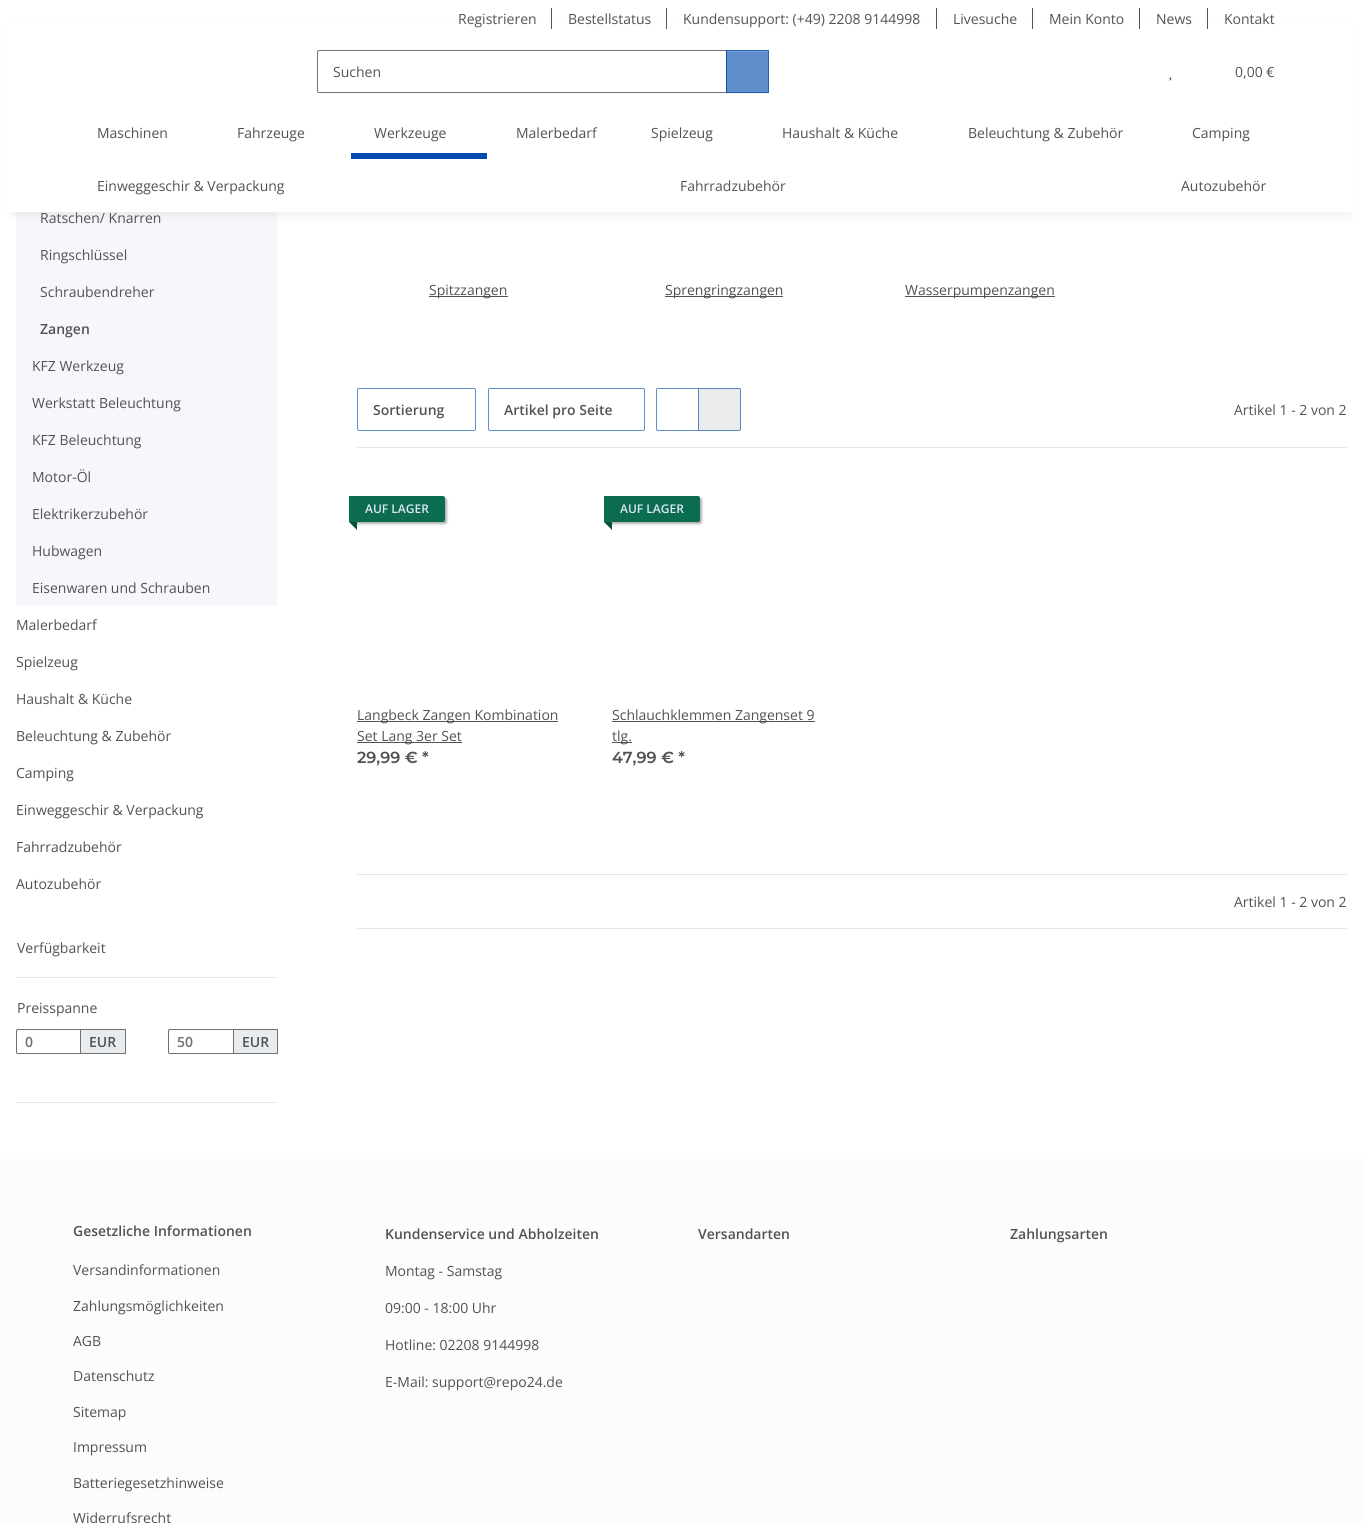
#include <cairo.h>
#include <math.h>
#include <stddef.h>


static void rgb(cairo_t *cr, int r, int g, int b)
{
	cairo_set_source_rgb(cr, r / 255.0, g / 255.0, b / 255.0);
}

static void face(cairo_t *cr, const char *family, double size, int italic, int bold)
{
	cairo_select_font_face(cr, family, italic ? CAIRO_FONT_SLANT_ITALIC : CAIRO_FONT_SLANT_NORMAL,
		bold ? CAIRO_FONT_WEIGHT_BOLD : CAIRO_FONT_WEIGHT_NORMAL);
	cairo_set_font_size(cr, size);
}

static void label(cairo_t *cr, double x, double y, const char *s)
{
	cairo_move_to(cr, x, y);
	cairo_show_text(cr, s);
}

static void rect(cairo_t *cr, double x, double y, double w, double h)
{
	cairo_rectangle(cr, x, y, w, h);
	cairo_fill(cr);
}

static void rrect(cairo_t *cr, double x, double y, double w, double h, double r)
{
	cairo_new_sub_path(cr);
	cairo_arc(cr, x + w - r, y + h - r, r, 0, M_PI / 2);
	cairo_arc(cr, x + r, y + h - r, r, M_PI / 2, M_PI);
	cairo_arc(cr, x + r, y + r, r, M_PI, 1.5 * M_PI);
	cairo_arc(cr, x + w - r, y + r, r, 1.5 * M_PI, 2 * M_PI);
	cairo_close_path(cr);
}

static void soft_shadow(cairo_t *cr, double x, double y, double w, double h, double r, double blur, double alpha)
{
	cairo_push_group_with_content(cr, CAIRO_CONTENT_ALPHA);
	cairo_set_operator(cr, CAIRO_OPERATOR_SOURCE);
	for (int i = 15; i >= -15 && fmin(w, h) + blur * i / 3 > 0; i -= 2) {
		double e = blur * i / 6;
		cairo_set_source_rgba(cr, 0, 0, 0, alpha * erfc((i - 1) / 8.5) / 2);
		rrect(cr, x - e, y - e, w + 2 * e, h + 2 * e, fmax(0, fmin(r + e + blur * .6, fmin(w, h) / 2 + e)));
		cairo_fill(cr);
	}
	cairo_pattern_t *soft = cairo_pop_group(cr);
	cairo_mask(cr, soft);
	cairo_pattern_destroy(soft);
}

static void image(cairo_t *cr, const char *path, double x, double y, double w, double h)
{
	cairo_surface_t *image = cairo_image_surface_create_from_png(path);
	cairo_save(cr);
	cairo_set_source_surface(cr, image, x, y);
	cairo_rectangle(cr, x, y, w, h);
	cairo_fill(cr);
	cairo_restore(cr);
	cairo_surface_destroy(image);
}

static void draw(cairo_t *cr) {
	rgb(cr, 255, 255, 255);
	cairo_paint(cr);
	rgb(cr, 245, 247, 250);
	rect(cr, 16, 212, 261, 394);
	rgb(cr, 0, 0, 0);
	soft_shadow(cr, 12, 28, 1339, 188, 0, 4.5, 0.06);
	rgb(cr, 255, 255, 255);
	rect(cr, 8, 24, 1347, 188);
	face(cr, "Open Sans", 14, 0, 0);
	rgb(cr, 82, 82, 82);
	label(cr, 458, 24, "Registrieren");
	rect(cr, 551, 8, 1, 21);
	label(cr, 568, 24, "Bestellstatus");
	rect(cr, 666, 8, 1, 21);
	label(cr, 683, 24, "Kundensupport: (+49) 2208 9144998");
	rect(cr, 936, 8, 1, 21);
	label(cr, 953, 24, "Livesuche");
	rect(cr, 1032, 8, 1, 21);
	label(cr, 1049, 24, "Mein Konto");
	rect(cr, 1139, 8, 1, 21);
	label(cr, 1156, 24, "News");
	rect(cr, 1207, 8, 1, 21);
	label(cr, 1224, 24, "Kontakt");
	cairo_new_path(cr);
	cairo_move_to(cr, 319, 50.5);
	cairo_line_to(cr, 726.5, 50.5);
	cairo_line_to(cr, 726.5, 92.5);
	cairo_line_to(cr, 319, 92.5);
	cairo_curve_to(cr, 318, 92.5, 317.5, 92, 317.5, 91);
	cairo_line_to(cr, 317.5, 52);
	cairo_curve_to(cr, 317.5, 51, 318, 50.5, 319, 50.5);
	cairo_close_path(cr);
	rgb(cr, 112, 112, 112);
	cairo_set_line_width(cr, 1);
	cairo_stroke(cr);
	rgb(cr, 82, 82, 82);
	label(cr, 333, 77, "Suchen");
	cairo_save(cr);
	cairo_rectangle(cr, 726, 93, 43, 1);
	cairo_clip(cr);
	rgb(cr, 0, 0, 0);
	soft_shadow(cr, 726, 51, 43, 43, 0, 0.5, 0.07);
	cairo_restore(cr);
	cairo_set_source_rgba(cr, 0, 0.294, 0.678, 0.63);
	rect(cr, 726, 50, 43, 43);
	rgb(cr, 118, 159, 211);
	rect(cr, 727, 51, 41, 1);
	cairo_rectangle(cr, 726.5, 50.5, 42, 42);
	cairo_set_source_rgba(cr, 0, 0.294, 0.678, 0.63);
	cairo_stroke(cr);
	image(cr, "image0.png", 1169, 77, 3, 4);
	rgb(cr, 82, 82, 82);
	label(cr, 1235, 77, "0,00 €");
	label(cr, 97, 138, "Maschinen");
	label(cr, 237, 138, "Fahrzeuge");
	label(cr, 374, 138, "Werkzeuge");
	rgb(cr, 0, 75, 173);
	rect(cr, 351, 153, 136, 6);
	rgb(cr, 82, 82, 82);
	label(cr, 516, 138, "Malerbedarf");
	label(cr, 651, 138, "Spielzeug");
	label(cr, 782, 138, "Haushalt & Küche");
	label(cr, 968, 138, "Beleuchtung & Zubehör");
	label(cr, 1192, 138, "Camping");
	label(cr, 97, 191, "Einweggeschir & Verpackung");
	label(cr, 680, 191, "Fahrradzubehör");
	label(cr, 1181, 191, "Autozubehör");
	label(cr, 40, 223, "Ratschen/ Knarren");
	label(cr, 40, 260, "Ringschlüssel");
	label(cr, 40, 297, "Schraubendreher");
	face(cr, "Open Sans SemiBold", 14, 0, 0);
	label(cr, 40, 334, "Zangen");
	face(cr, "Open Sans", 14, 0, 0);
	label(cr, 32, 371, "KFZ Werkzeug");
	label(cr, 32, 408, "Werkstatt Beleuchtung");
	label(cr, 32, 445, "KFZ Beleuchtung");
	label(cr, 32, 482, "Motor-Öl");
	label(cr, 32, 519, "Elektrikerzubehör");
	label(cr, 32, 556, "Hubwagen");
	label(cr, 32, 593, "Eisenwaren und Schrauben");
	label(cr, 16, 630, "Malerbedarf");
	label(cr, 16, 667, "Spielzeug");
	label(cr, 16, 704, "Haushalt & Küche");
	label(cr, 16, 741, "Beleuchtung & Zubehör");
	label(cr, 16, 778, "Camping");
	label(cr, 16, 815, "Einweggeschir & Verpackung");
	label(cr, 16, 852, "Fahrradzubehör");
	label(cr, 16, 889, "Autozubehör");
	label(cr, 17, 953, "Verfügbarkeit");
	rgb(cr, 230, 230, 230);
	rect(cr, 16, 977, 261, 1);
	rgb(cr, 82, 82, 82);
	label(cr, 17, 1013, "Preisspanne");
	cairo_new_path(cr);
	cairo_move_to(cr, 18, 1029.5);
	cairo_line_to(cr, 80.5, 1029.5);
	cairo_line_to(cr, 80.5, 1053.5);
	cairo_line_to(cr, 18, 1053.5);
	cairo_curve_to(cr, 17, 1053.5, 16.5, 1053, 16.5, 1052);
	cairo_line_to(cr, 16.5, 1031);
	cairo_curve_to(cr, 16.5, 1030, 17, 1029.5, 18, 1029.5);
	cairo_close_path(cr);
	rgb(cr, 112, 112, 112);
	cairo_stroke(cr);
	face(cr, "Open Sans SemiBold", 14, 0, 0);
	label(cr, 25, 1047, "0");
	rgb(cr, 233, 236, 239);
	rect(cr, 81, 1030, 44, 23);
	rgb(cr, 112, 112, 112);
	rect(cr, 81, 1029, 45, 1);
	rect(cr, 125, 1029, 1, 25);
	rect(cr, 81, 1053, 45, 1);
	rgb(cr, 82, 82, 82);
	label(cr, 89, 1047, "EUR");
	cairo_new_path(cr);
	cairo_move_to(cr, 170, 1029.5);
	cairo_line_to(cr, 233.5, 1029.5);
	cairo_line_to(cr, 233.5, 1053.5);
	cairo_line_to(cr, 170, 1053.5);
	cairo_curve_to(cr, 169, 1053.5, 168.5, 1053, 168.5, 1052);
	cairo_line_to(cr, 168.5, 1031);
	cairo_curve_to(cr, 168.5, 1030, 169, 1029.5, 170, 1029.5);
	cairo_close_path(cr);
	rgb(cr, 112, 112, 112);
	cairo_stroke(cr);
	label(cr, 177, 1047, "50");
	rgb(cr, 233, 236, 239);
	rect(cr, 234, 1030, 43, 23);
	rgb(cr, 112, 112, 112);
	rect(cr, 234, 1029, 44, 1);
	rect(cr, 277, 1029, 1, 25);
	rect(cr, 234, 1053, 44, 1);
	rgb(cr, 82, 82, 82);
	label(cr, 242, 1047, "EUR");
	rgb(cr, 230, 230, 230);
	rect(cr, 16, 1102, 261, 1);
	rgb(cr, 82, 82, 82);
	rect(cr, 429, 296, 79, 1);
	face(cr, "Open Sans", 14, 0, 0);
	label(cr, 429, 295, "Spitzzangen");
	rect(cr, 665, 296, 118, 1);
	label(cr, 665, 295, "Sprengringzangen");
	rect(cr, 905, 296, 150, 1);
	label(cr, 905, 295, "Wasserpumpenzangen");
	rrect(cr, 357.5, 388.5, 118, 42, 1.5);
	rgb(cr, 94, 142, 203);
	cairo_stroke(cr);
	face(cr, "Open Sans SemiBold", 14, 0, 0);
	rgb(cr, 82, 82, 82);
	label(cr, 373, 415, "Sortierung");
	rrect(cr, 488.5, 388.5, 156, 42, 1.5);
	rgb(cr, 94, 142, 203);
	cairo_stroke(cr);
	rgb(cr, 82, 82, 82);
	label(cr, 504, 415, "Artikel pro Seite");
	cairo_new_path(cr);
	cairo_move_to(cr, 658, 388.5);
	cairo_line_to(cr, 698.5, 388.5);
	cairo_line_to(cr, 698.5, 430.5);
	cairo_line_to(cr, 658, 430.5);
	cairo_curve_to(cr, 657, 430.5, 656.5, 430, 656.5, 429);
	cairo_line_to(cr, 656.5, 390);
	cairo_curve_to(cr, 656.5, 389, 657, 388.5, 658, 388.5);
	cairo_close_path(cr);
	rgb(cr, 94, 142, 203);
	cairo_stroke(cr);
	rgb(cr, 235, 235, 235);
	cairo_new_path(cr);
	cairo_move_to(cr, 698.5, 388.5);
	cairo_line_to(cr, 739, 388.5);
	cairo_curve_to(cr, 740, 388.5, 740.5, 389, 740.5, 390);
	cairo_line_to(cr, 740.5, 429);
	cairo_curve_to(cr, 740.5, 430, 740, 430.5, 739, 430.5);
	cairo_line_to(cr, 698.5, 430.5);
	cairo_close_path(cr);
	cairo_fill_preserve(cr);
	rgb(cr, 87, 134, 196);
	cairo_stroke(cr);
	face(cr, "Open Sans", 14, 0, 0);
	rgb(cr, 82, 82, 82);
	label(cr, 1234, 415, "Artikel 1 - 2 von 2");
	rgb(cr, 230, 230, 230);
	rect(cr, 357, 447, 990, 1);
	rgb(cr, 0, 0, 0);
	soft_shadow(cr, 351, 498, 96, 26, 2, 1, 0.3);
	rgb(cr, 11, 108, 81);
	cairo_new_path(cr);
	cairo_move_to(cr, 349, 496);
	cairo_line_to(cr, 443, 496);
	cairo_curve_to(cr, 444, 496, 445, 497, 445, 498);
	cairo_line_to(cr, 445, 520);
	cairo_curve_to(cr, 445, 521, 444, 522, 443, 522);
	cairo_line_to(cr, 349, 522);
	cairo_close_path(cr);
	cairo_fill(cr);
	face(cr, "Open Sans SemiBold", 12, 0, 0);
	rgb(cr, 225, 231, 240);
	label(cr, 365, 513, "AUF LAGER");
	rgb(cr, 8, 80, 60);
	cairo_new_path(cr);
	cairo_move_to(cr, 357, 522);
	cairo_line_to(cr, 357, 530);
	cairo_line_to(cr, 349, 522);
	cairo_close_path(cr);
	cairo_fill(cr);
	rgb(cr, 82, 82, 82);
	rect(cr, 357, 721, 201, 1);
	face(cr, "Open Sans", 14, 0, 0);
	label(cr, 357, 720, "Langbeck Zangen Kombination");
	rect(cr, 357, 742, 105, 1);
	label(cr, 357, 741, "Set Lang 3er Set");
	face(cr, "Montserrat SemiBold", 16, 0, 0);
	label(cr, 357, 763, "29,99 € *");
	rgb(cr, 0, 0, 0);
	soft_shadow(cr, 606, 498, 96, 26, 2, 1, 0.3);
	rgb(cr, 11, 108, 81);
	cairo_new_path(cr);
	cairo_move_to(cr, 604, 496);
	cairo_line_to(cr, 698, 496);
	cairo_curve_to(cr, 699, 496, 700, 497, 700, 498);
	cairo_line_to(cr, 700, 520);
	cairo_curve_to(cr, 700, 521, 699, 522, 698, 522);
	cairo_line_to(cr, 604, 522);
	cairo_close_path(cr);
	cairo_fill(cr);
	face(cr, "Open Sans SemiBold", 12, 0, 0);
	rgb(cr, 225, 231, 240);
	label(cr, 620, 513, "AUF LAGER");
	rgb(cr, 8, 80, 60);
	cairo_new_path(cr);
	cairo_move_to(cr, 612, 522);
	cairo_line_to(cr, 612, 530);
	cairo_line_to(cr, 604, 522);
	cairo_close_path(cr);
	cairo_fill(cr);
	rgb(cr, 82, 82, 82);
	rect(cr, 612, 721, 203, 1);
	face(cr, "Open Sans", 14, 0, 0);
	label(cr, 612, 720, "Schlauchklemmen Zangenset 9");
	rect(cr, 612, 742, 20, 1);
	label(cr, 612, 741, "tlg.");
	face(cr, "Montserrat SemiBold", 16, 0, 0);
	label(cr, 612, 763, "47,99 € *");
	rgb(cr, 230, 230, 230);
	rect(cr, 357, 874, 990, 1);
	face(cr, "Open Sans", 14, 0, 0);
	rgb(cr, 82, 82, 82);
	label(cr, 1234, 907, "Artikel 1 - 2 von 2");
	rgb(cr, 230, 230, 230);
	rect(cr, 357, 928, 990, 1);
	rgb(cr, 251, 252, 253);
	rect(cr, 0, 1159, 1363, 364);
	face(cr, "Open Sans SemiBold", 14, 0, 0);
	rgb(cr, 82, 82, 82);
	label(cr, 73, 1236, "Gesetzliche Informationen");
	face(cr, "Open Sans", 14, 0, 0);
	label(cr, 73, 1275, "Versandinformationen");
	label(cr, 73, 1311, "Zahlungsmöglichkeiten");
	label(cr, 73, 1346, "AGB");
	label(cr, 73, 1381, "Datenschutz");
	label(cr, 73, 1417, "Sitemap");
	label(cr, 73, 1452, "Impressum");
	label(cr, 73, 1488, "Batteriegesetzhinweise");
	label(cr, 73, 1523, "Widerrufsrecht");
	face(cr, "Open Sans SemiBold", 14, 0, 0);
	label(cr, 385, 1239, "Kundenservice und Abholzeiten");
	face(cr, "Open Sans", 14, 0, 0);
	label(cr, 385, 1276, "Montag - Samstag");
	label(cr, 385, 1313, "09:00 - 18:00 Uhr");
	label(cr, 385, 1350, "Hotline: 02208 9144998");
	label(cr, 385, 1387, "E-Mail: support@repo24.de");
	face(cr, "Open Sans SemiBold", 14, 0, 0);
	label(cr, 698, 1239, "Versandarten");
	label(cr, 1010, 1239, "Zahlungsarten");
}

int main(void) {
	cairo_surface_t *surface = cairo_image_surface_create(CAIRO_FORMAT_RGB24, 1363, 1523);
	cairo_t *cr = cairo_create(surface);
	cairo_font_options_t *options = cairo_font_options_create();
	cairo_font_options_set_hint_metrics(options, CAIRO_HINT_METRICS_OFF);
	cairo_font_options_set_hint_style(options, CAIRO_HINT_STYLE_NONE);
	cairo_set_font_options(cr, options);
	cairo_set_miter_limit(cr, 4);
	draw(cr);
	cairo_surface_write_to_png(surface, "render.png");
	cairo_font_options_destroy(options);
	cairo_destroy(cr);
	cairo_surface_destroy(surface);
	return 0;
}
